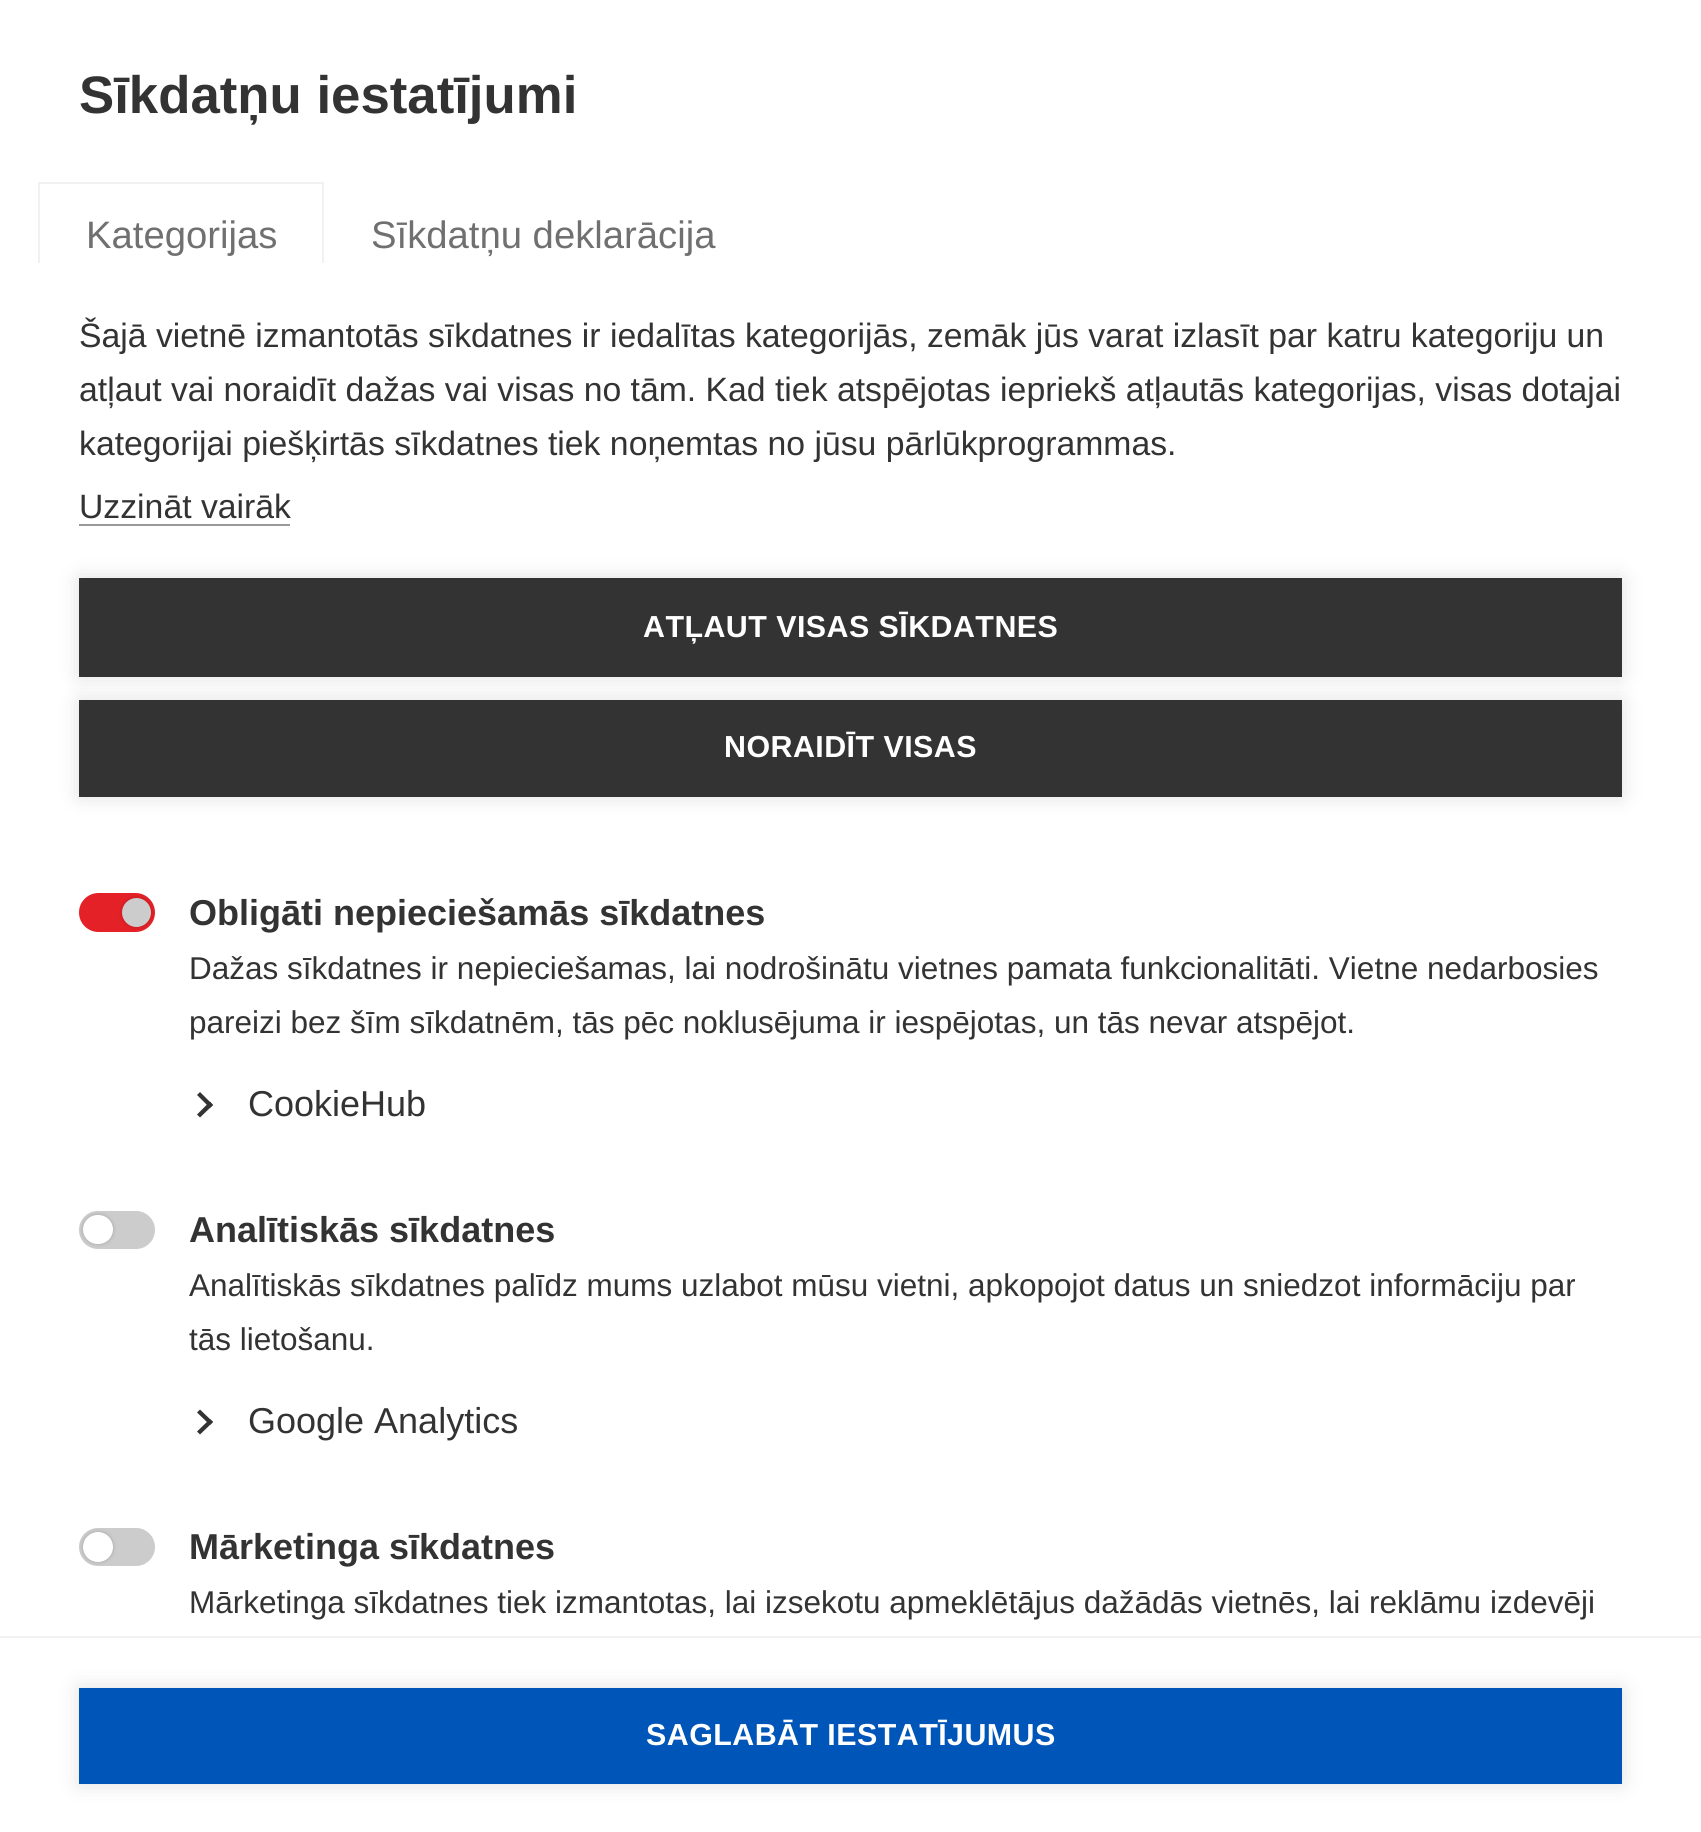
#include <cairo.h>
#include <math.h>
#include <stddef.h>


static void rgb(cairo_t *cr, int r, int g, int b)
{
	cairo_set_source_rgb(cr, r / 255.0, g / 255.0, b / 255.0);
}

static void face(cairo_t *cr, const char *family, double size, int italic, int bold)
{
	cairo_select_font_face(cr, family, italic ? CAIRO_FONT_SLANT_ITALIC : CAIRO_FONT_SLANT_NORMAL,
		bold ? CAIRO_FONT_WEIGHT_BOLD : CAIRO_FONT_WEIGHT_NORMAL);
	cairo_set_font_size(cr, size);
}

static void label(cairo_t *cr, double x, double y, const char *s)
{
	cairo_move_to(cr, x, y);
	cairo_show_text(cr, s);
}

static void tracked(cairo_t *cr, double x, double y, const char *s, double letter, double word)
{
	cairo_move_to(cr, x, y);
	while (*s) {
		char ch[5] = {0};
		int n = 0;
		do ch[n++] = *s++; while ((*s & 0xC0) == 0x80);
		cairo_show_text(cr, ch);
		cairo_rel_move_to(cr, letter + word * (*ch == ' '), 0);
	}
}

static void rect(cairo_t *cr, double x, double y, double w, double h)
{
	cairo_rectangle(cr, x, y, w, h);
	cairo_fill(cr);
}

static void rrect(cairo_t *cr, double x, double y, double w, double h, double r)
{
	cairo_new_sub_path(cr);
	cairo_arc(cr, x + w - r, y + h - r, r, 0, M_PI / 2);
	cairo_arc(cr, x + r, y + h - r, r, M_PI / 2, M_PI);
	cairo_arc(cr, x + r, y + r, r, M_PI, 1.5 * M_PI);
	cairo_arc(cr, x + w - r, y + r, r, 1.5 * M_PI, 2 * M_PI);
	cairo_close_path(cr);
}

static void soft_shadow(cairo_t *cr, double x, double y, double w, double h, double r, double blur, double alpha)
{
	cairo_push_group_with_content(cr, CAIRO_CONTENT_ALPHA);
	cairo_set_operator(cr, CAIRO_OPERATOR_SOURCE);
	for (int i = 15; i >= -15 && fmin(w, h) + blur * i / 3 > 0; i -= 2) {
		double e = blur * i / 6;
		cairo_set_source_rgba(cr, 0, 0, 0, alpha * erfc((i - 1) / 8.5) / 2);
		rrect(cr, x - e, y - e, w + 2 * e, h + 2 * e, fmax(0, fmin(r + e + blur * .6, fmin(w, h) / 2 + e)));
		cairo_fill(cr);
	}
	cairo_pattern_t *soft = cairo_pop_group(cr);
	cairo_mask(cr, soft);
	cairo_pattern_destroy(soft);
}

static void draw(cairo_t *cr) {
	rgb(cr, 255, 255, 255);
	cairo_paint(cr);
	face(cr, "Liberation Sans", 52.75, 0, 1);
	rgb(cr, 51, 51, 51);
	label(cr, 79, 113, "Sīkdatņu iestatījumi");
	rgb(cr, 241, 241, 241);
	cairo_new_path(cr);
	cairo_move_to(cr, 38, 182);
	cairo_line_to(cr, 324, 182);
	cairo_line_to(cr, 322, 184);
	cairo_line_to(cr, 40, 184);
	cairo_close_path(cr);
	cairo_fill(cr);
	cairo_save(cr);
	cairo_rectangle(cr, 5, 180, 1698, 83);
	cairo_clip(cr);
	cairo_set_source_rgba(cr, 0.439, 0.439, 0.439, 0.1);
	cairo_new_path(cr);
	cairo_move_to(cr, 324, 182);
	cairo_line_to(cr, 324, 290);
	cairo_line_to(cr, 322, 288);
	cairo_line_to(cr, 322, 184);
	cairo_close_path(cr);
	cairo_fill(cr);
	cairo_new_path(cr);
	cairo_move_to(cr, 38, 290);
	cairo_line_to(cr, 38, 182);
	cairo_line_to(cr, 40, 184);
	cairo_line_to(cr, 40, 288);
	cairo_close_path(cr);
	cairo_fill(cr);
	cairo_restore(cr);
	face(cr, "Liberation Sans", 38.25, 0, 0);
	rgb(cr, 112, 112, 112);
	label(cr, 86, 248, "Kategorijas");
	label(cr, 371, 248, "Sīkdatņu deklarācija");
	face(cr, "Liberation Sans", 33.75, 0, 0);
	rgb(cr, 51, 51, 51);
	label(cr, 79, 347, "Šajā vietnē izmantotās sīkdatnes ir iedalītas kategorijās, zemāk jūs varat izlasīt par katru kategoriju un");
	label(cr, 79, 401, "atļaut vai noraidīt dažas vai visas no tām. Kad tiek atspējotas iepriekš atļautās kategorijas, visas dotajai");
	label(cr, 79, 455, "kategorijai piešķirtās sīkdatnes tiek noņemtas no jūsu pārlūkprogrammas.");
	label(cr, 79, 518, "Uzzināt vairāk");
	rgb(cr, 153, 153, 153);
	rect(cr, 79, 524, 211, 2);
	rgb(cr, 0, 0, 0);
	soft_shadow(cr, 79, 578, 1543, 99, 0, 11, 0.12);
	rgb(cr, 51, 51, 51);
	rect(cr, 79, 578, 1543, 99);
	face(cr, "Liberation Sans", 30.4, 0, 1);
	rgb(cr, 255, 255, 255);
	tracked(cr, 643, 637, "ATĻAUT VISAS SĪKDATNES", 0.45, 0);
	rgb(cr, 0, 0, 0);
	soft_shadow(cr, 79, 700, 1543, 97, 0, 11, 0.12);
	rgb(cr, 51, 51, 51);
	rect(cr, 79, 700, 1543, 97);
	rgb(cr, 255, 255, 255);
	tracked(cr, 724, 757, "NORAIDĪT VISAS", 0.45, 0);
	rgb(cr, 228, 33, 39);
	rrect(cr, 79, 893, 76, 39, 19.5);
	cairo_fill(cr);
	rgb(cr, 0, 0, 0);
	soft_shadow(cr, 122, 898, 29, 29, 14.5, 2, 0.2);
	rgb(cr, 204, 204, 204);
	cairo_arc(cr, 136.5, 912.5, 14.5, 0, 2 * M_PI);
	cairo_fill(cr);
	face(cr, "Liberation Sans", 36, 0, 1);
	rgb(cr, 51, 51, 51);
	label(cr, 189, 925, "Obligāti nepieciešamās sīkdatnes");
	face(cr, "Liberation Sans", 31.5, 0, 0);
	label(cr, 189, 979, "Dažas sīkdatnes ir nepieciešamas, lai nodrošinātu vietnes pamata funkcionalitāti. Vietne nedarbosies");
	label(cr, 189, 1033, "pareizi bez šīm sīkdatnēm, tās pēc noklusējuma ir iespējotas, un tās nevar atspējot.");
	cairo_new_path(cr);
	cairo_move_to(cr, 197, 1095);
	cairo_line_to(cr, 200, 1092);
	cairo_line_to(cr, 213, 1105);
	cairo_line_to(cr, 210, 1108);
	cairo_close_path(cr);
	cairo_fill(cr);
	cairo_new_path(cr);
	cairo_move_to(cr, 197, 1114.5);
	cairo_line_to(cr, 210, 1101.5);
	cairo_line_to(cr, 213, 1105);
	cairo_line_to(cr, 200, 1117.5);
	cairo_close_path(cr);
	cairo_fill(cr);
	face(cr, "Liberation Sans", 36, 0, 0);
	label(cr, 248, 1116, "CookieHub");
	rgb(cr, 204, 204, 204);
	rrect(cr, 79, 1211, 76, 38, 19);
	cairo_fill(cr);
	rgb(cr, 0, 0, 0);
	soft_shadow(cr, 83, 1215, 30, 29, 14.5, 2, 0.2);
	rgb(cr, 255, 255, 255);
	rrect(cr, 83, 1215, 30, 29, 14.5);
	cairo_fill(cr);
	face(cr, "Liberation Sans", 36, 0, 1);
	rgb(cr, 51, 51, 51);
	label(cr, 189, 1242, "Analītiskās sīkdatnes");
	face(cr, "Liberation Sans", 31.5, 0, 0);
	label(cr, 189, 1296, "Analītiskās sīkdatnes palīdz mums uzlabot mūsu vietni, apkopojot datus un sniedzot informāciju par");
	label(cr, 189, 1350, "tās lietošanu.");
	cairo_new_path(cr);
	cairo_move_to(cr, 197, 1412.5);
	cairo_line_to(cr, 200, 1409.5);
	cairo_line_to(cr, 213, 1422);
	cairo_line_to(cr, 210, 1425);
	cairo_close_path(cr);
	cairo_fill(cr);
	cairo_new_path(cr);
	cairo_move_to(cr, 197, 1431.5);
	cairo_line_to(cr, 210, 1419);
	cairo_line_to(cr, 213, 1422);
	cairo_line_to(cr, 200, 1434.5);
	cairo_close_path(cr);
	cairo_fill(cr);
	face(cr, "Liberation Sans", 36, 0, 0);
	label(cr, 248, 1433, "Google Analytics");
	rgb(cr, 204, 204, 204);
	rrect(cr, 79, 1528, 76, 38, 19);
	cairo_fill(cr);
	rgb(cr, 0, 0, 0);
	soft_shadow(cr, 83, 1532, 30, 30, 15, 2, 0.2);
	rgb(cr, 255, 255, 255);
	cairo_arc(cr, 98, 1547, 15, 0, 2 * M_PI);
	cairo_fill(cr);
	face(cr, "Liberation Sans", 36, 0, 1);
	rgb(cr, 51, 51, 51);
	label(cr, 189, 1559, "Mārketinga sīkdatnes");
	face(cr, "Liberation Sans", 31.5, 0, 0);
	label(cr, 189, 1613, "Mārketinga sīkdatnes tiek izmantotas, lai izsekotu apmeklētājus dažādās vietnēs, lai reklāmu izdevēji");
	rgb(cr, 241, 241, 241);
	rect(cr, 0, 1636, 1701, 2);
	rgb(cr, 0, 0, 0);
	soft_shadow(cr, 79, 1688, 1543, 96, 0, 11, 0.12);
	rgb(cr, 0, 85, 184);
	rect(cr, 79, 1688, 1543, 96);
	face(cr, "Liberation Sans", 30.4, 0, 1);
	rgb(cr, 255, 255, 255);
	tracked(cr, 646, 1745, "SAGLABĀT IESTATĪJUMUS", 0.45, 0);
}

int main(void) {
	cairo_surface_t *surface = cairo_image_surface_create(CAIRO_FORMAT_RGB24, 1701, 1832);
	cairo_t *cr = cairo_create(surface);
	cairo_font_options_t *options = cairo_font_options_create();
	cairo_font_options_set_hint_metrics(options, CAIRO_HINT_METRICS_OFF);
	cairo_font_options_set_hint_style(options, CAIRO_HINT_STYLE_NONE);
	cairo_set_font_options(cr, options);
	cairo_set_miter_limit(cr, 4);
	draw(cr);
	cairo_surface_write_to_png(surface, "render.png");
	cairo_font_options_destroy(options);
	cairo_destroy(cr);
	cairo_surface_destroy(surface);
	return 0;
}
